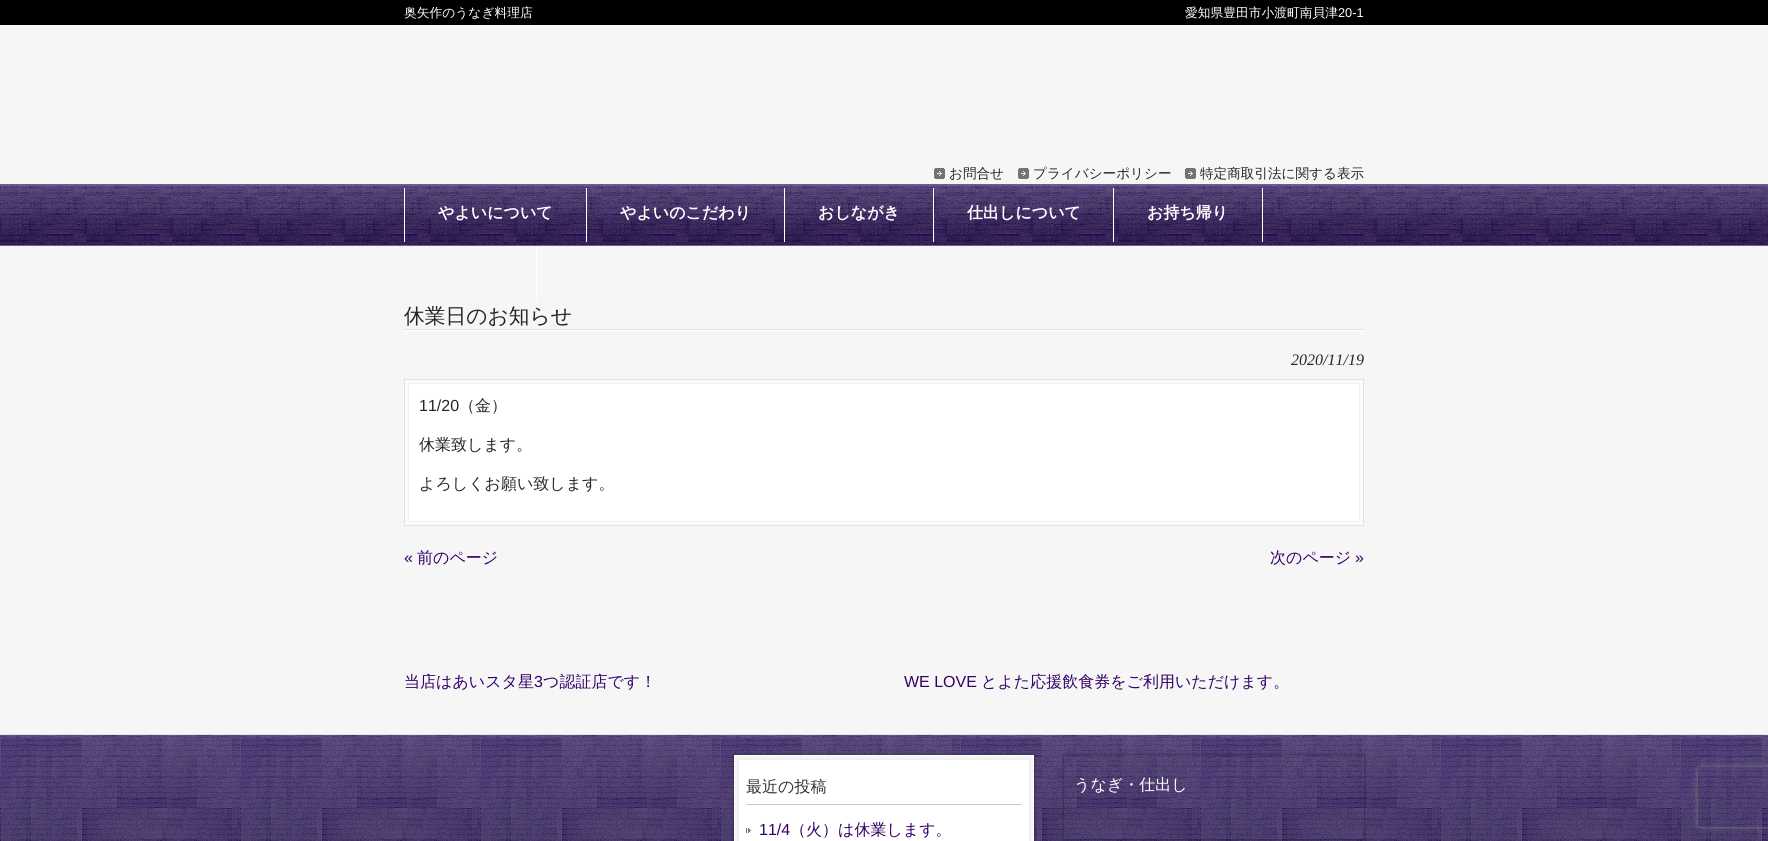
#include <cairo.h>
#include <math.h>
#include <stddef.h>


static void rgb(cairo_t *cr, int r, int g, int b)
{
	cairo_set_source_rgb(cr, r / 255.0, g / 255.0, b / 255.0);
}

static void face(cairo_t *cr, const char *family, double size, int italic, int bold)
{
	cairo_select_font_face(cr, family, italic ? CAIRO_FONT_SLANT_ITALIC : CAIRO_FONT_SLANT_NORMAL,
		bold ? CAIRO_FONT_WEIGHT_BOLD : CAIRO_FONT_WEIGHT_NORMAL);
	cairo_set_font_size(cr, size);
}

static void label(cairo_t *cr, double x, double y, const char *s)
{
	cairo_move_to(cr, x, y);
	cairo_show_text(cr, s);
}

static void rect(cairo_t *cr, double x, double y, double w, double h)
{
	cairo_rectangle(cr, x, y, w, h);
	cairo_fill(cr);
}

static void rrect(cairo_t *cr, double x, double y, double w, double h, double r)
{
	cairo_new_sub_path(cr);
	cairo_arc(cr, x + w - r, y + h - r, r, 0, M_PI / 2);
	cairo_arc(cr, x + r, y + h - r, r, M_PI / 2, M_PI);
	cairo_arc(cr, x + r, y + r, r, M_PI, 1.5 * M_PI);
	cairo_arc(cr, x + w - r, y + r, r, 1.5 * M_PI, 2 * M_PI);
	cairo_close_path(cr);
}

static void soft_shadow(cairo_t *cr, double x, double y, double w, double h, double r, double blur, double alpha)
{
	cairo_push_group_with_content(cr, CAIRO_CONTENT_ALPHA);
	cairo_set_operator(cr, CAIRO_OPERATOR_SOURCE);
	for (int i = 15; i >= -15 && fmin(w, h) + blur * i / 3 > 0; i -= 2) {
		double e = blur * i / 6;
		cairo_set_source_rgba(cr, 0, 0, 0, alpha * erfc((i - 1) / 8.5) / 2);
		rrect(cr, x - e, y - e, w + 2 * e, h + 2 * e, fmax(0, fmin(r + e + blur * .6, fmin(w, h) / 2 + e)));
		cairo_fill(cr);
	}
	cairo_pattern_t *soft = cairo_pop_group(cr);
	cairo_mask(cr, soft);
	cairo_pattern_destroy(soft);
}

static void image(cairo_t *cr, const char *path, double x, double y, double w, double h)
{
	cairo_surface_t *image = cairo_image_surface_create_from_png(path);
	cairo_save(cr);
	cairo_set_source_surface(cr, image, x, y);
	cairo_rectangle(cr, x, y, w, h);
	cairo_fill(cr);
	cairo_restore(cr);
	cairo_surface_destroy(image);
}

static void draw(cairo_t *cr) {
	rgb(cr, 246, 246, 246);
	cairo_paint(cr);
	rgb(cr, 0, 0, 0);
	rect(cr, 0, 0, 1768, 25);
	face(cr, "WenQuanYi Zen Hei Medium", 12.75, 0, 0);
	rgb(cr, 255, 255, 255);
	label(cr, 404, 17, "奥矢作のうなぎ料理店");
	label(cr, 1185, 17, "愛知県豊田市小渡町南貝津");
	face(cr, "Liberation Sans", 12.75, 0, 0);
	label(cr, 1338, 17, "20-1");
	image(cr, "image0.png", 934, 168, 11, 11);
	face(cr, "WenQuanYi Zen Hei Medium", 13.6, 0, 0);
	rgb(cr, 37, 37, 37);
	label(cr, 949, 178, "お問合せ");
	image(cr, "image0.png", 1018, 168, 11, 11);
	label(cr, 1033, 178, "プライバシーポリシー");
	image(cr, "image0.png", 1185, 168, 11, 11);
	label(cr, 1200, 178, "特定商取引法に関する表示");
	image(cr, "image1.png", 0, 184, 1768, 62);
	rgb(cr, 255, 255, 255);
	rect(cr, 586, 188, 1, 54);
	rect(cr, 404, 188, 1, 54);
	face(cr, "WenQuanYi Zen Hei", 16, 0, 1);
	label(cr, 438, 218, "やよいについて");
	rect(cr, 784, 188, 1, 54);
	label(cr, 620, 218, "やよいのこだわり");
	rect(cr, 933, 188, 1, 54);
	label(cr, 818, 218, "おしながき");
	rect(cr, 1113, 188, 1, 54);
	label(cr, 967, 218, "仕出しについて");
	rect(cr, 1262, 188, 1, 54);
	label(cr, 1147, 218, "お持ち帰り");
	rect(cr, 536, 246, 1, 54);
	image(cr, "image2.png", 404, 329, 960, 2);
	face(cr, "WenQuanYi Zen Hei Medium", 20.75, 0, 0);
	rgb(cr, 37, 37, 37);
	label(cr, 404, 323, "休業日のお知らせ");
	face(cr, "Liberation Serif", 16, 1, 0);
	label(cr, 1291, 365, "2020/11/19");
	rgb(cr, 251, 251, 251);
	cairo_rectangle(cr, 404.5, 379.5, 959, 146);
	cairo_fill_preserve(cr);
	rgb(cr, 226, 226, 226);
	cairo_set_line_width(cr, 1);
	cairo_stroke(cr);
	rgb(cr, 255, 255, 255);
	cairo_rectangle(cr, 408.5, 383.5, 951, 138);
	cairo_fill_preserve(cr);
	rgb(cr, 241, 241, 241);
	cairo_stroke(cr);
	face(cr, "Liberation Sans", 16, 0, 0);
	rgb(cr, 37, 37, 37);
	label(cr, 419, 411, "11/20");
	face(cr, "WenQuanYi Zen Hei Medium", 16, 0, 0);
	label(cr, 459, 411, "（金）");
	label(cr, 419, 450, "休業致します。");
	label(cr, 419, 489, "よろしくお願い致します。");
	face(cr, "Liberation Sans", 16, 0, 0);
	rgb(cr, 51, 0, 102);
	label(cr, 404, 563, "«");
	face(cr, "WenQuanYi Zen Hei Medium", 16, 0, 0);
	label(cr, 417, 563, "前のページ");
	label(cr, 1270, 563, "次のページ");
	face(cr, "Liberation Sans", 16, 0, 0);
	label(cr, 1355, 563, "»");
	face(cr, "WenQuanYi Zen Hei Medium", 16, 0, 0);
	label(cr, 404, 687, "当店はあいスタ星");
	face(cr, "Liberation Sans", 16, 0, 0);
	label(cr, 534, 687, "3");
	face(cr, "WenQuanYi Zen Hei Medium", 16, 0, 0);
	label(cr, 543, 687, "つ認証店です！");
	face(cr, "Liberation Sans", 16, 0, 0);
	label(cr, 904, 687, "WE LOVE");
	face(cr, "WenQuanYi Zen Hei Medium", 16, 0, 0);
	label(cr, 981, 687, "とよた応援飲食券をご利用いただけます。");
	image(cr, "image3.png", 0, 735, 1768, 106);
	rgb(cr, 226, 226, 226);
	rect(cr, 0, 734, 1768, 1);
	rgb(cr, 0, 0, 0);
	soft_shadow(cr, 734, 755, 300, 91, 0, 1.5, 0.5);
	rgb(cr, 244, 244, 244);
	cairo_rectangle(cr, 734.5, 755.5, 299, 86);
	cairo_fill_preserve(cr);
	rgb(cr, 255, 255, 255);
	cairo_stroke(cr);
	cairo_rectangle(cr, 738.5, 759.5, 291, 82);
	cairo_fill_preserve(cr);
	rgb(cr, 238, 238, 238);
	cairo_stroke(cr);
	rgb(cr, 204, 204, 204);
	rect(cr, 746, 804, 276, 1);
	rgb(cr, 51, 51, 51);
	label(cr, 746, 792, "最近の投稿");
	image(cr, "image4.png", 746, 828, 5, 5);
	face(cr, "Liberation Sans", 16, 0, 0);
	rgb(cr, 51, 0, 102);
	label(cr, 759, 835, "11/4");
	face(cr, "WenQuanYi Zen Hei Medium", 16, 0, 0);
	label(cr, 790, 835, "（火）は休業します。");
	cairo_save(cr);
	cairo_set_fill_rule(cr, CAIRO_FILL_RULE_EVEN_ODD);
	cairo_new_path(cr);
	cairo_move_to(cr, 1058, 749);
	cairo_line_to(cr, 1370, 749);
	cairo_line_to(cr, 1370, 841);
	cairo_line_to(cr, 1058, 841);
	cairo_close_path(cr);
	cairo_move_to(cr, 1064, 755);
	cairo_line_to(cr, 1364, 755);
	cairo_line_to(cr, 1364, 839);
	cairo_line_to(cr, 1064, 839);
	cairo_close_path(cr);
	cairo_clip(cr);
	rgb(cr, 0, 0, 0);
	soft_shadow(cr, 1064, 755, 300, 84, 0, 1.5, 0.5);
	cairo_restore(cr);
	rgb(cr, 255, 255, 255);
	label(cr, 1074, 790, "うなぎ・仕出し");
	cairo_save(cr);
	cairo_set_fill_rule(cr, CAIRO_FILL_RULE_EVEN_ODD);
	cairo_new_path(cr);
	cairo_move_to(cr, 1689, 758);
	cairo_line_to(cr, 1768, 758);
	cairo_line_to(cr, 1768, 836);
	cairo_line_to(cr, 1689, 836);
	cairo_close_path(cr);
	cairo_move_to(cr, 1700, 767);
	cairo_line_to(cr, 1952, 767);
	cairo_curve_to(cr, 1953, 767, 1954, 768, 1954, 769);
	cairo_line_to(cr, 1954, 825);
	cairo_curve_to(cr, 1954, 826, 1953, 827, 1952, 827);
	cairo_line_to(cr, 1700, 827);
	cairo_curve_to(cr, 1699, 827, 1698, 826, 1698, 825);
	cairo_line_to(cr, 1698, 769);
	cairo_curve_to(cr, 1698, 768, 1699, 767, 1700, 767);
	cairo_close_path(cr);
	cairo_clip(cr);
	rgb(cr, 128, 128, 128);
	soft_shadow(cr, 1698, 767, 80, 60, 2, 2.5, 1);
	cairo_restore(cr);
}

int main(void) {
	cairo_surface_t *surface = cairo_image_surface_create(CAIRO_FORMAT_RGB24, 1768, 841);
	cairo_t *cr = cairo_create(surface);
	cairo_font_options_t *options = cairo_font_options_create();
	cairo_font_options_set_hint_metrics(options, CAIRO_HINT_METRICS_OFF);
	cairo_font_options_set_hint_style(options, CAIRO_HINT_STYLE_NONE);
	cairo_set_font_options(cr, options);
	cairo_set_miter_limit(cr, 4);
	draw(cr);
	cairo_surface_write_to_png(surface, "render.png");
	cairo_font_options_destroy(options);
	cairo_destroy(cr);
	cairo_surface_destroy(surface);
	return 0;
}
